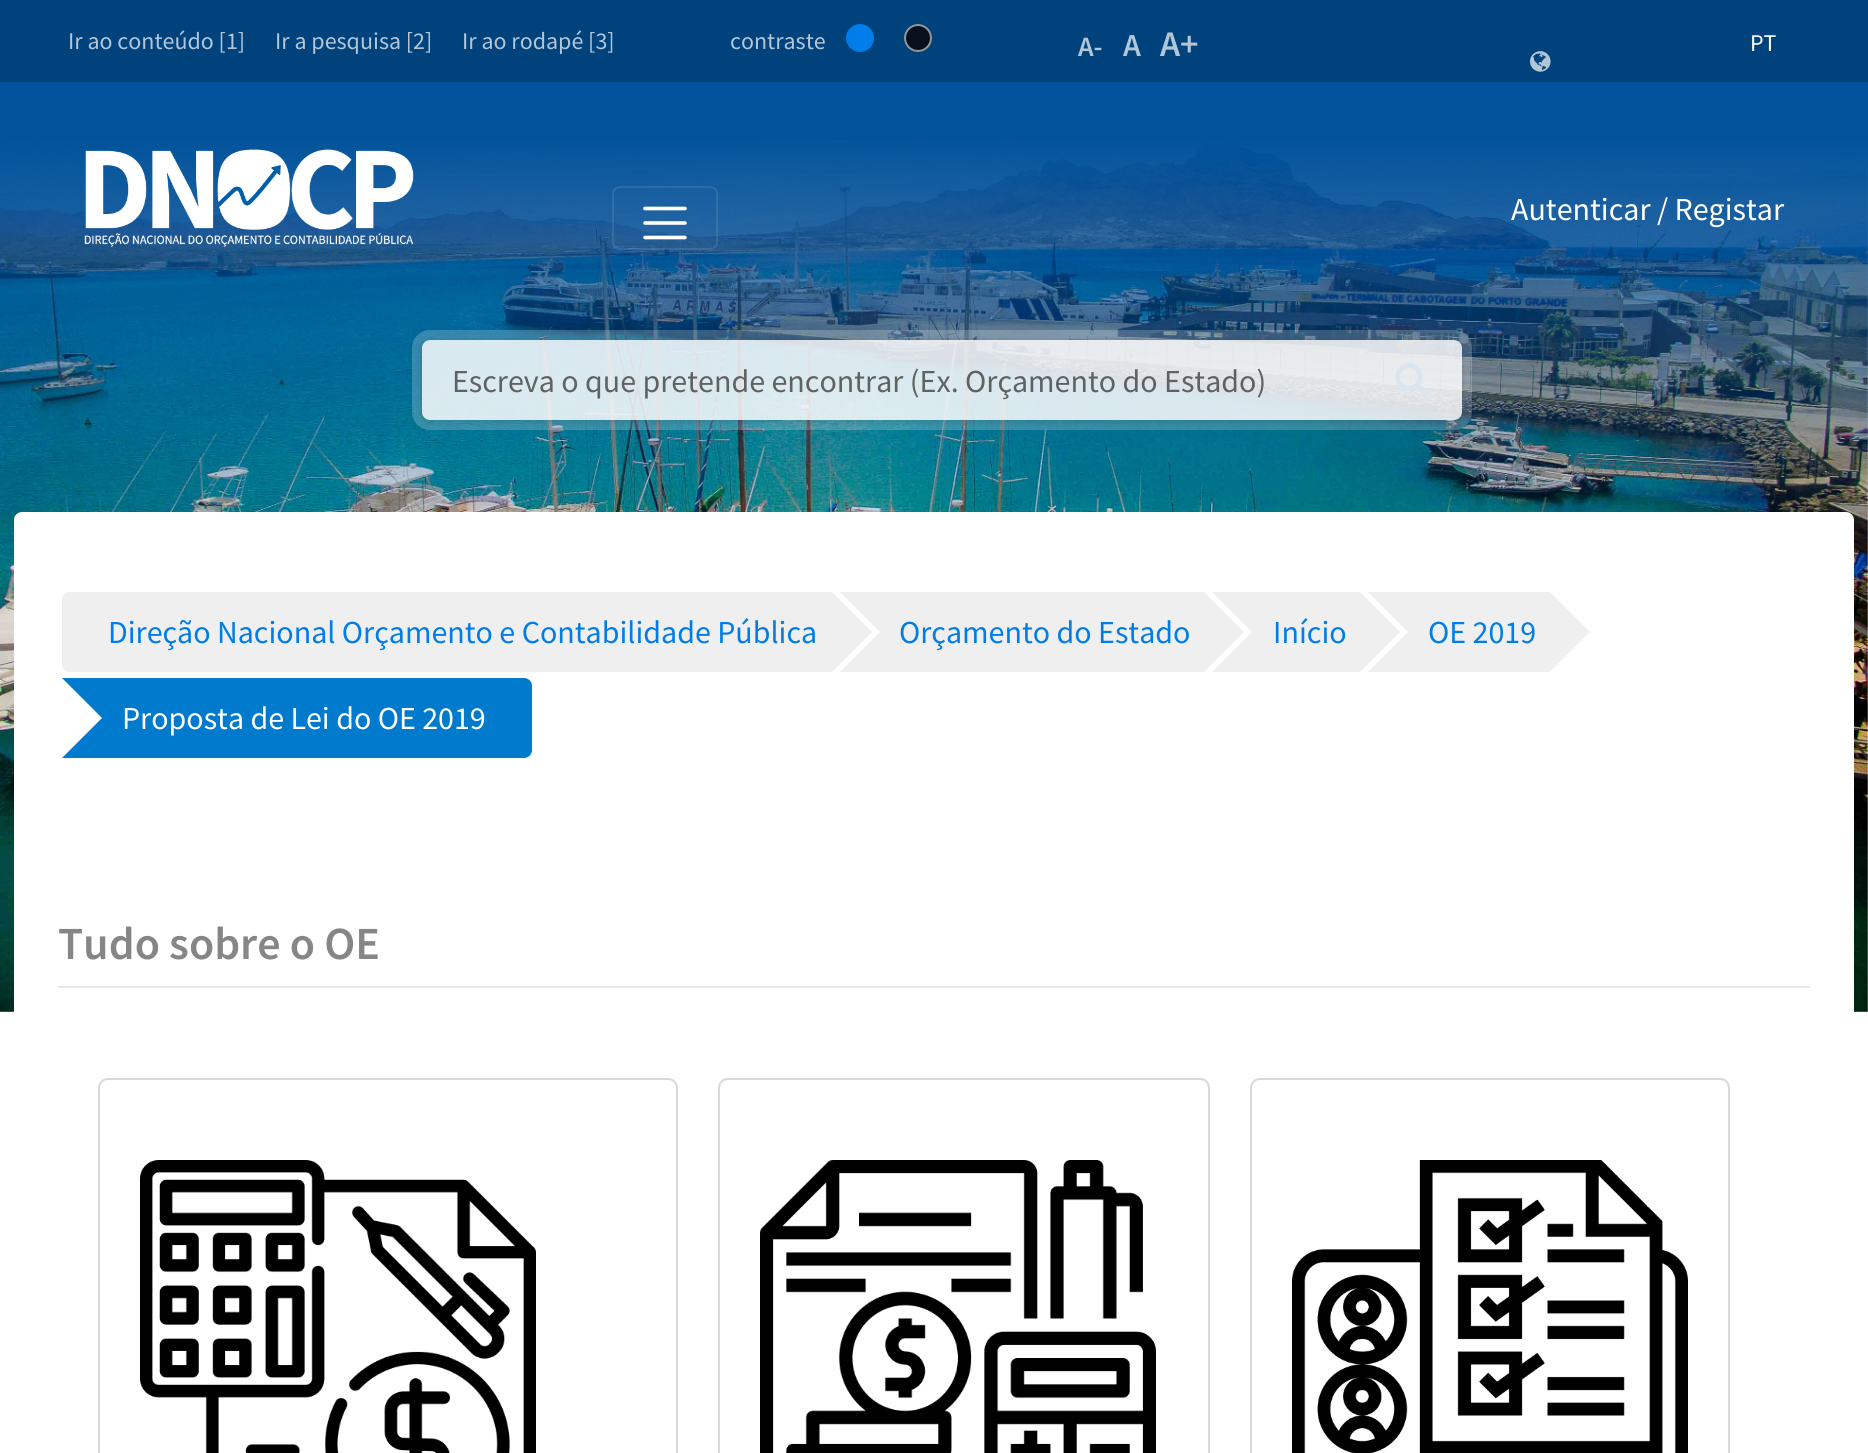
#include <cairo.h>
#include <math.h>
#include <stddef.h>


static void rgb(cairo_t *cr, int r, int g, int b)
{
	cairo_set_source_rgb(cr, r / 255.0, g / 255.0, b / 255.0);
}

static void face(cairo_t *cr, const char *family, double size, int italic, int bold)
{
	cairo_select_font_face(cr, family, italic ? CAIRO_FONT_SLANT_ITALIC : CAIRO_FONT_SLANT_NORMAL,
		bold ? CAIRO_FONT_WEIGHT_BOLD : CAIRO_FONT_WEIGHT_NORMAL);
	cairo_set_font_size(cr, size);
}

static void label(cairo_t *cr, double x, double y, const char *s)
{
	cairo_move_to(cr, x, y);
	cairo_show_text(cr, s);
}

static void rect(cairo_t *cr, double x, double y, double w, double h)
{
	cairo_rectangle(cr, x, y, w, h);
	cairo_fill(cr);
}

static void rrect(cairo_t *cr, double x, double y, double w, double h, double r)
{
	cairo_new_sub_path(cr);
	cairo_arc(cr, x + w - r, y + h - r, r, 0, M_PI / 2);
	cairo_arc(cr, x + r, y + h - r, r, M_PI / 2, M_PI);
	cairo_arc(cr, x + r, y + r, r, M_PI, 1.5 * M_PI);
	cairo_arc(cr, x + w - r, y + r, r, 1.5 * M_PI, 2 * M_PI);
	cairo_close_path(cr);
}

static void soft_shadow(cairo_t *cr, double x, double y, double w, double h, double r, double blur, double alpha)
{
	cairo_push_group_with_content(cr, CAIRO_CONTENT_ALPHA);
	cairo_set_operator(cr, CAIRO_OPERATOR_SOURCE);
	for (int i = 15; i >= -15 && fmin(w, h) + blur * i / 3 > 0; i -= 2) {
		double e = blur * i / 6;
		cairo_set_source_rgba(cr, 0, 0, 0, alpha * erfc((i - 1) / 8.5) / 2);
		rrect(cr, x - e, y - e, w + 2 * e, h + 2 * e, fmax(0, fmin(r + e + blur * .6, fmin(w, h) / 2 + e)));
		cairo_fill(cr);
	}
	cairo_pattern_t *soft = cairo_pop_group(cr);
	cairo_mask(cr, soft);
	cairo_pattern_destroy(soft);
}

static void image(cairo_t *cr, const char *path, double x, double y, double w, double h)
{
	cairo_surface_t *image = cairo_image_surface_create_from_png(path);
	cairo_save(cr);
	cairo_set_source_surface(cr, image, x, y);
	cairo_rectangle(cr, x, y, w, h);
	cairo_fill(cr);
	cairo_restore(cr);
	cairo_surface_destroy(image);
}

static void draw(cairo_t *cr) {
	cairo_pattern_t *gradient;
	rgb(cr, 255, 255, 255);
	cairo_paint(cr);
	rgb(cr, 0, 66, 124);
	rect(cr, 0, 0, 1868, 82);
	face(cr, "Source Sans Pro", 24, 0, 0);
	rgb(cr, 179, 198, 216);
	label(cr, 68, 49, "Ir ao conteúdo [1]");
	label(cr, 275, 49, "Ir a pesquisa [2]");
	label(cr, 462, 49, "Ir ao rodapé [3]");
	label(cr, 730, 49, "contraste");
	rgb(cr, 0, 125, 232);
	cairo_new_path(cr);
	cairo_arc(cr, 860, 38, 14, 0, 2 * M_PI);
	cairo_fill(cr);
	rgb(cr, 9, 16, 29);
	cairo_arc(cr, 918, 38, 14, 0, 2 * M_PI);
	cairo_fill(cr);
	cairo_arc(cr, 918, 38, 13, 0, 2 * M_PI);
	cairo_set_source_rgba(cr, 1, 1, 1, 0.56);
	cairo_stroke(cr);
	face(cr, "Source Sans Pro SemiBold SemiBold", 28, 0, 0);
	rgb(cr, 179, 198, 216);
	label(cr, 1078, 56, "A-");
	face(cr, "Source Sans Pro SemiBold SemiBold", 32, 0, 0);
	label(cr, 1123, 56, "A");
	face(cr, "Source Sans Pro SemiBold SemiBold", 36, 0, 0);
	label(cr, 1160, 56, "A+");
	face(cr, "Source Sans Pro", 24, 0, 0);
	rgb(cr, 255, 255, 255);
	label(cr, 1750, 51, "PT");
	image(cr, "image0.png", 1530, 51, 21, 21);
	image(cr, "image1.png", 0, 136, 1868, 876);
	gradient = cairo_pattern_create_linear(934, 82, 934, 594);
	cairo_pattern_add_color_stop_rgba(gradient, 0.1, 0, 0.322, 0.608, 1);
	cairo_pattern_add_color_stop_rgba(gradient, 1, 0, 0.322, 0.608, 0);
	cairo_set_source(cr, gradient);
	cairo_pattern_destroy(gradient);
	rect(cr, 0, 82, 1868, 502);
	image(cr, "image2.png", 84, 149, 330, 98);
	rrect(cr, 613, 187, 104, 62, 7);
	cairo_set_source_rgba(cr, 1, 1, 1, 0.1);
	cairo_stroke(cr);
	cairo_new_path(cr);
	cairo_move_to(cr, 645, 208.5);
	cairo_line_to(cr, 685, 208.5);
	cairo_move_to(cr, 645, 223);
	cairo_line_to(cr, 685, 223);
	cairo_move_to(cr, 645, 237.5);
	cairo_line_to(cr, 685, 237.5);
	rgb(cr, 255, 255, 255);
	cairo_set_line_width(cr, 3.6);
	cairo_set_line_cap(cr, CAIRO_LINE_CAP_ROUND);
	cairo_stroke(cr);
	face(cr, "Source Sans Pro", 32, 0, 0);
	label(cr, 1511, 220, "Autenticar / Registar");
	image(cr, "image3.png", 1395, 363, 34, 34);
	rrect(cr, 417, 335, 1050, 90, 13);
	cairo_set_source_rgba(cr, 1, 1, 1, 0.21);
	cairo_set_line_width(cr, 10);
	cairo_set_line_cap(cr, CAIRO_LINE_CAP_BUTT);
	cairo_stroke(cr);
	cairo_save(cr);
	cairo_set_fill_rule(cr, CAIRO_FILL_RULE_EVEN_ODD);
	cairo_new_path(cr);
	cairo_move_to(cr, 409, 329);
	cairo_line_to(cr, 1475, 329);
	cairo_line_to(cr, 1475, 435);
	cairo_line_to(cr, 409, 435);
	cairo_close_path(cr);
	cairo_move_to(cr, 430, 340);
	cairo_line_to(cr, 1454, 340);
	cairo_curve_to(cr, 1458.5, 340, 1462, 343.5, 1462, 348);
	cairo_line_to(cr, 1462, 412);
	cairo_curve_to(cr, 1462, 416.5, 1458.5, 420, 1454, 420);
	cairo_line_to(cr, 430, 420);
	cairo_curve_to(cr, 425.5, 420, 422, 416.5, 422, 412);
	cairo_line_to(cr, 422, 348);
	cairo_curve_to(cr, 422, 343.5, 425.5, 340, 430, 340);
	cairo_close_path(cr);
	cairo_clip(cr);
	rgb(cr, 0, 0, 0);
	soft_shadow(cr, 422, 342, 1040, 80, 8, 4, 0.16);
	cairo_restore(cr);
	cairo_set_source_rgba(cr, 1, 1, 1, 0.85);
	rrect(cr, 422, 340, 1040, 80, 8);
	cairo_fill(cr);
	rgb(cr, 96, 98, 98);
	label(cr, 452, 392, "Escreva o que pretende encontrar (Ex. Orçamento do Estado)");
	rgb(cr, 255, 255, 255);
	rrect(cr, 14, 512, 1840, 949, 8);
	cairo_fill(cr);
	rgb(cr, 239, 239, 239);
	cairo_new_path(cr);
	cairo_move_to(cr, 70, 592);
	cairo_line_to(cr, 840, 592);
	cairo_line_to(cr, 840, 672);
	cairo_line_to(cr, 70, 672);
	cairo_curve_to(cr, 65.5, 672, 62, 668.5, 62, 664);
	cairo_line_to(cr, 62, 600);
	cairo_curve_to(cr, 62, 595.5, 65.5, 592, 70, 592);
	cairo_close_path(cr);
	cairo_fill(cr);
	rgb(cr, 255, 255, 255);
	rect(cr, 832, 592, 8, 80);
	rgb(cr, 0, 125, 232);
	label(cr, 108, 643, "Direção Nacional Orçamento e Contabilidade Pública");
	rgb(cr, 239, 239, 239);
	rect(cr, 840, 592, 364, 80);
	rgb(cr, 255, 255, 255);
	cairo_new_path(cr);
	cairo_move_to(cr, 840, 672);
	cairo_line_to(cr, 840, 592);
	cairo_line_to(cr, 880, 632);
	cairo_close_path(cr);
	cairo_fill(cr);
	rgb(cr, 239, 239, 239);
	cairo_new_path(cr);
	cairo_move_to(cr, 832, 672);
	cairo_line_to(cr, 832, 592);
	cairo_line_to(cr, 872, 632);
	cairo_close_path(cr);
	cairo_fill(cr);
	rgb(cr, 0, 125, 232);
	label(cr, 899, 643, "Orçamento do Estado");
	rgb(cr, 239, 239, 239);
	rect(cr, 1212, 592, 148, 80);
	rgb(cr, 255, 255, 255);
	cairo_new_path(cr);
	cairo_move_to(cr, 1212, 672);
	cairo_line_to(cr, 1212, 592);
	cairo_line_to(cr, 1252, 632);
	cairo_close_path(cr);
	cairo_fill(cr);
	rgb(cr, 239, 239, 239);
	cairo_new_path(cr);
	cairo_move_to(cr, 1204, 672);
	cairo_line_to(cr, 1204, 592);
	cairo_line_to(cr, 1244, 632);
	cairo_close_path(cr);
	cairo_fill(cr);
	rgb(cr, 0, 125, 232);
	label(cr, 1273, 643, "Início");
	rgb(cr, 239, 239, 239);
	rect(cr, 1368, 592, 182, 80);
	rgb(cr, 255, 255, 255);
	cairo_new_path(cr);
	cairo_move_to(cr, 1368, 672);
	cairo_line_to(cr, 1368, 592);
	cairo_line_to(cr, 1408, 632);
	cairo_close_path(cr);
	cairo_fill(cr);
	rgb(cr, 239, 239, 239);
	cairo_new_path(cr);
	cairo_move_to(cr, 1360, 672);
	cairo_line_to(cr, 1360, 592);
	cairo_line_to(cr, 1400, 632);
	cairo_close_path(cr);
	cairo_fill(cr);
	rgb(cr, 0, 125, 232);
	label(cr, 1428, 643, "OE 2019");
	rgb(cr, 239, 239, 239);
	cairo_new_path(cr);
	cairo_move_to(cr, 1550, 672);
	cairo_line_to(cr, 1550, 592);
	cairo_line_to(cr, 1590, 632);
	cairo_close_path(cr);
	cairo_fill(cr);
	rgb(cr, 0, 122, 204);
	cairo_new_path(cr);
	cairo_move_to(cr, 62, 678);
	cairo_line_to(cr, 524, 678);
	cairo_curve_to(cr, 528.5, 678, 532, 681.5, 532, 686);
	cairo_line_to(cr, 532, 750);
	cairo_curve_to(cr, 532, 754.5, 528.5, 758, 524, 758);
	cairo_line_to(cr, 62, 758);
	cairo_close_path(cr);
	cairo_fill(cr);
	rgb(cr, 255, 255, 255);
	cairo_new_path(cr);
	cairo_move_to(cr, 62, 758);
	cairo_line_to(cr, 62, 678);
	cairo_line_to(cr, 102, 718);
	cairo_close_path(cr);
	cairo_fill(cr);
	label(cr, 122, 729, "Proposta de Lei do OE 2019");
	face(cr, "Source Sans Pro SemiBold SemiBold", 46, 0, 0);
	rgb(cr, 134, 134, 134);
	label(cr, 58, 959, "Tudo sobre o OE");
	rgb(cr, 231, 231, 231);
	rect(cr, 58, 986, 1752, 2);
	rrect(cr, 99, 1079, 578, 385, 9);
	rgb(cr, 217, 217, 217);
	cairo_set_line_width(cr, 2);
	cairo_stroke(cr);
	image(cr, "image4.png", 140, 1160, 396, 293);
	rrect(cr, 719, 1079, 490, 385, 9);
	cairo_stroke(cr);
	image(cr, "image5.png", 760, 1160, 396, 293);
	rrect(cr, 1251, 1079, 478, 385, 9);
	cairo_stroke(cr);
	image(cr, "image6.png", 1292, 1160, 396, 293);
}

int main(void) {
	cairo_surface_t *surface = cairo_image_surface_create(CAIRO_FORMAT_RGB24, 1868, 1453);
	cairo_t *cr = cairo_create(surface);
	cairo_font_options_t *options = cairo_font_options_create();
	cairo_font_options_set_hint_metrics(options, CAIRO_HINT_METRICS_OFF);
	cairo_font_options_set_hint_style(options, CAIRO_HINT_STYLE_NONE);
	cairo_set_font_options(cr, options);
	cairo_set_miter_limit(cr, 4);
	draw(cr);
	cairo_surface_write_to_png(surface, "render.png");
	cairo_font_options_destroy(options);
	cairo_destroy(cr);
	cairo_surface_destroy(surface);
	return 0;
}
